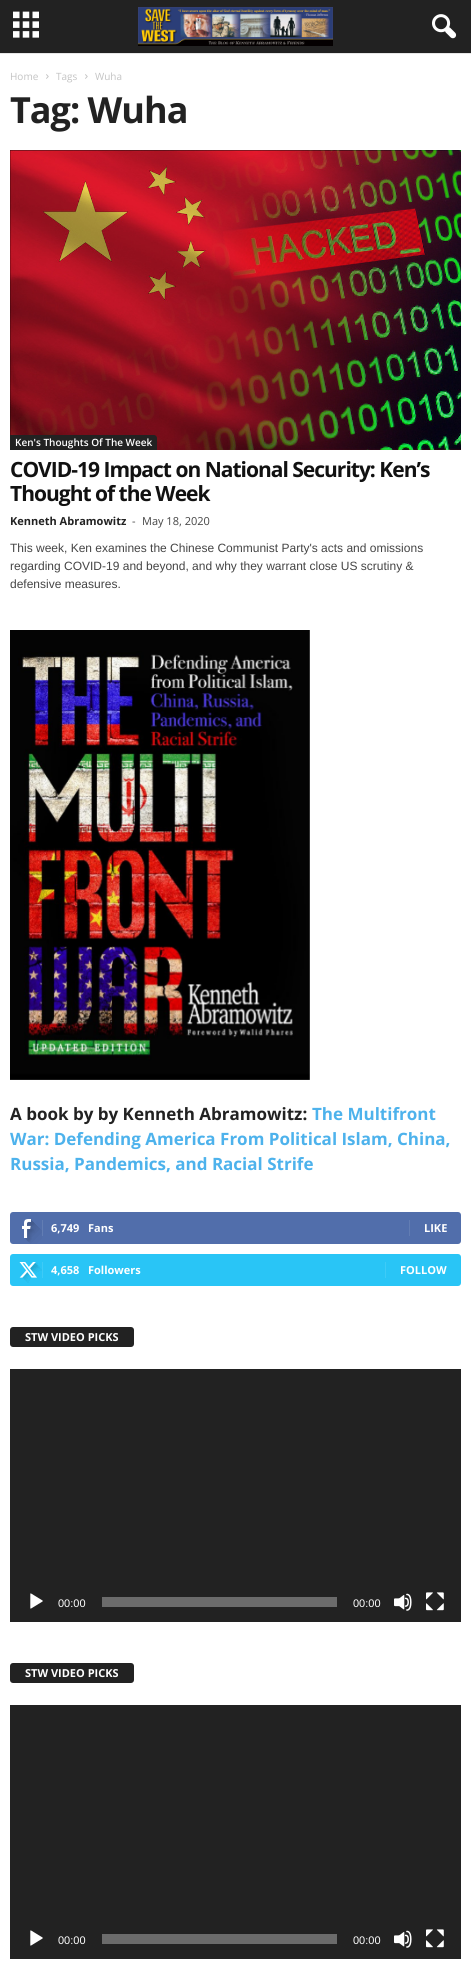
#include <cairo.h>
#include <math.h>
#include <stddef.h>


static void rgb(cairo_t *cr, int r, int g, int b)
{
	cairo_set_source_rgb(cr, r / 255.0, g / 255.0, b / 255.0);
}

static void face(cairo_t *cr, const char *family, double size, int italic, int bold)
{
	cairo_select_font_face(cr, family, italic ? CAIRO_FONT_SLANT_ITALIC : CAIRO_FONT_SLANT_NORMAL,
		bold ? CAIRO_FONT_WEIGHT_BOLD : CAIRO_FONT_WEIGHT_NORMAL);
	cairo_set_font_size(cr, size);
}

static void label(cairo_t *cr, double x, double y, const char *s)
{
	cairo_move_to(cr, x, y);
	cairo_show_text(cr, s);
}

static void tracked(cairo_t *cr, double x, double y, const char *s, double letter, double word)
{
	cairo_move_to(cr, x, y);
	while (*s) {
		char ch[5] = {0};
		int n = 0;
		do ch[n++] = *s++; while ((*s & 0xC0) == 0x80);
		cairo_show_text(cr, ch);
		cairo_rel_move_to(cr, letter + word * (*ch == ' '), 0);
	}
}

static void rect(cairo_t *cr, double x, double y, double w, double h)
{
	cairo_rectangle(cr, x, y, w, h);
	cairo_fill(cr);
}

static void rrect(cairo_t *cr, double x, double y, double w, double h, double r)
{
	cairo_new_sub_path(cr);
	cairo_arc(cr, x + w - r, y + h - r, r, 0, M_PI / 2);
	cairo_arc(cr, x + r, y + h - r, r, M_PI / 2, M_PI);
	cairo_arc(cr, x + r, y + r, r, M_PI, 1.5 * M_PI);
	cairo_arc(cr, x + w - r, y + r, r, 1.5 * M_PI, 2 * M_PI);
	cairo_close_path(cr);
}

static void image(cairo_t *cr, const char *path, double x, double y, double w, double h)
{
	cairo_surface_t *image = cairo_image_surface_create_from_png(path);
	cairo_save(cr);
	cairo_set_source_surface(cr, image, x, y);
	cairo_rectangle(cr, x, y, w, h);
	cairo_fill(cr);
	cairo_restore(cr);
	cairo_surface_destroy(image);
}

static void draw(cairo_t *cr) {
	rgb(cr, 255, 255, 255);
	cairo_paint(cr);
	rgb(cr, 34, 34, 34);
	rect(cr, 0, 0, 471, 53);
	image(cr, "image0.png", 13, 11, 26, 27);
	image(cr, "image1.png", 138, 7, 195, 39);
	image(cr, "image2.png", 432, 14, 25, 25);
	rgb(cr, 230, 230, 230);
	rect(cr, 0, 53, 471, 1);
	face(cr, "Open Sans", 10, 0, 0);
	rgb(cr, 195, 195, 195);
	label(cr, 10, 80, "Home");
	image(cr, "image3.png", 46, 74, 3, 5);
	label(cr, 56, 80, "Tags");
	image(cr, "image3.png", 85, 74, 3, 5);
	label(cr, 95, 80, "Wuha");
	face(cr, "Open Sans", 36, 0, 1);
	rgb(cr, 34, 34, 34);
	tracked(cr, 10, 123, "Tag: Wuha", -1, 0);
	image(cr, "image4.png", 10, 150, 451, 300);
	cairo_new_path(cr);
	cairo_move_to(cr, 10, 435);
	cairo_line_to(cr, 154, 435);
	cairo_curve_to(cr, 155.5, 435, 157, 436.5, 157, 438);
	cairo_line_to(cr, 157, 450);
	cairo_line_to(cr, 10, 450);
	cairo_close_path(cr);
	cairo_fill(cr);
	face(cr, "Open Sans SemiBold", 10, 0, 0);
	rgb(cr, 255, 255, 255);
	label(cr, 15, 446, "Ken's Thoughts Of The Week");
	face(cr, "Open Sans", 21, 0, 1);
	rgb(cr, 17, 17, 17);
	tracked(cr, 10, 477, "COVID-19 Impact on National Security: Ken’s", -1, 0);
	tracked(cr, 10, 501, "Thought of the Week", -1, 0);
	face(cr, "Open Sans", 11, 0, 1);
	rgb(cr, 34, 34, 34);
	label(cr, 10, 525, "Kenneth Abramowitz");
	face(cr, "Open Sans", 11, 0, 0);
	rgb(cr, 68, 68, 68);
	label(cr, 132, 525, "-");
	label(cr, 142, 525, "May 18, 2020");
	face(cr, "Liberation Sans", 12, 0, 0);
	label(cr, 10, 552, "This week, Ken examines the Chinese Communist Party's acts and omissions");
	label(cr, 10, 570, "regarding COVID-19 and beyond, and why they warrant close US scrutiny &");
	label(cr, 10, 588, "defensive measures.");
	image(cr, "image5.png", 10, 630, 300, 450);
	face(cr, "Open Sans", 17, 0, 1);
	rgb(cr, 34, 34, 34);
	label(cr, 10, 1120, "A book by by Kenneth Abramowitz:");
	rgb(cr, 77, 178, 236);
	label(cr, 312, 1120, "The Multifront");
	label(cr, 10, 1145, "War: Defending America From Political Islam, China,");
	label(cr, 10, 1170, "Russia, Pandemics, and Racial Strife");
	rgb(cr, 81, 110, 171);
	rrect(cr, 10, 1212, 451, 32, 3);
	cairo_fill(cr);
	image(cr, "image6.png", 22, 1219, 20, 25);
	rgb(cr, 98, 125, 179);
	rect(cr, 42, 1220, 1, 16);
	face(cr, "Open Sans", 11, 0, 1);
	rgb(cr, 255, 255, 255);
	label(cr, 51, 1232, "6,749");
	label(cr, 88, 1232, "Fans");
	rgb(cr, 98, 125, 179);
	rect(cr, 409, 1220, 1, 16);
	rgb(cr, 255, 255, 255);
	label(cr, 424, 1232, "LIKE");
	rgb(cr, 41, 197, 246);
	rrect(cr, 10, 1254, 451, 32, 3);
	cairo_fill(cr);
	image(cr, "image7.png", 19, 1262, 23, 21);
	rgb(cr, 62, 203, 247);
	rect(cr, 42, 1262, 1, 16);
	rgb(cr, 255, 255, 255);
	label(cr, 51, 1274, "4,658");
	label(cr, 88, 1274, "Followers");
	rgb(cr, 62, 203, 247);
	rect(cr, 385, 1262, 1, 16);
	rgb(cr, 255, 255, 255);
	label(cr, 400, 1274, "FOLLOW");
	rgb(cr, 34, 34, 34);
	rrect(cr, 10, 1327, 124, 20, 3);
	cairo_fill(cr);
	rgb(cr, 255, 255, 255);
	label(cr, 25, 1341, "STW VIDEO PICKS");
	rgb(cr, 34, 34, 34);
	rect(cr, 10, 1369, 451, 253);
	image(cr, "image8.png", 30, 1593, 13, 16);
	face(cr, "Liberation Sans", 11, 0, 0);
	rgb(cr, 255, 255, 255);
	label(cr, 58, 1607, "00:00");
	rgb(cr, 107, 107, 107);
	rect(cr, 102, 1597, 235, 10);
	rgb(cr, 255, 255, 255);
	label(cr, 353, 1607, "00:00");
	image(cr, "image9.png", 394, 1593, 18, 18);
	image(cr, "image10.png", 426, 1592, 18, 19);
	rgb(cr, 34, 34, 34);
	rrect(cr, 10, 1663, 124, 20, 3);
	cairo_fill(cr);
	face(cr, "Open Sans", 11, 0, 1);
	rgb(cr, 255, 255, 255);
	label(cr, 25, 1677, "STW VIDEO PICKS");
	rgb(cr, 34, 34, 34);
	rect(cr, 10, 1705, 451, 254);
	image(cr, "image8.png", 30, 1930, 13, 16);
	face(cr, "Liberation Sans", 11, 0, 0);
	rgb(cr, 255, 255, 255);
	label(cr, 58, 1944, "00:00");
	rgb(cr, 107, 107, 107);
	rect(cr, 102, 1934, 235, 10);
	rgb(cr, 255, 255, 255);
	label(cr, 353, 1944, "00:00");
	image(cr, "image9.png", 394, 1930, 18, 18);
	image(cr, "image10.png", 426, 1929, 18, 19);
}

int main(void) {
	cairo_surface_t *surface = cairo_image_surface_create(CAIRO_FORMAT_RGB24, 471, 1965);
	cairo_t *cr = cairo_create(surface);
	cairo_font_options_t *options = cairo_font_options_create();
	cairo_font_options_set_hint_metrics(options, CAIRO_HINT_METRICS_OFF);
	cairo_font_options_set_hint_style(options, CAIRO_HINT_STYLE_NONE);
	cairo_set_font_options(cr, options);
	cairo_set_miter_limit(cr, 4);
	draw(cr);
	cairo_surface_write_to_png(surface, "render.png");
	cairo_font_options_destroy(options);
	cairo_destroy(cr);
	cairo_surface_destroy(surface);
	return 0;
}
